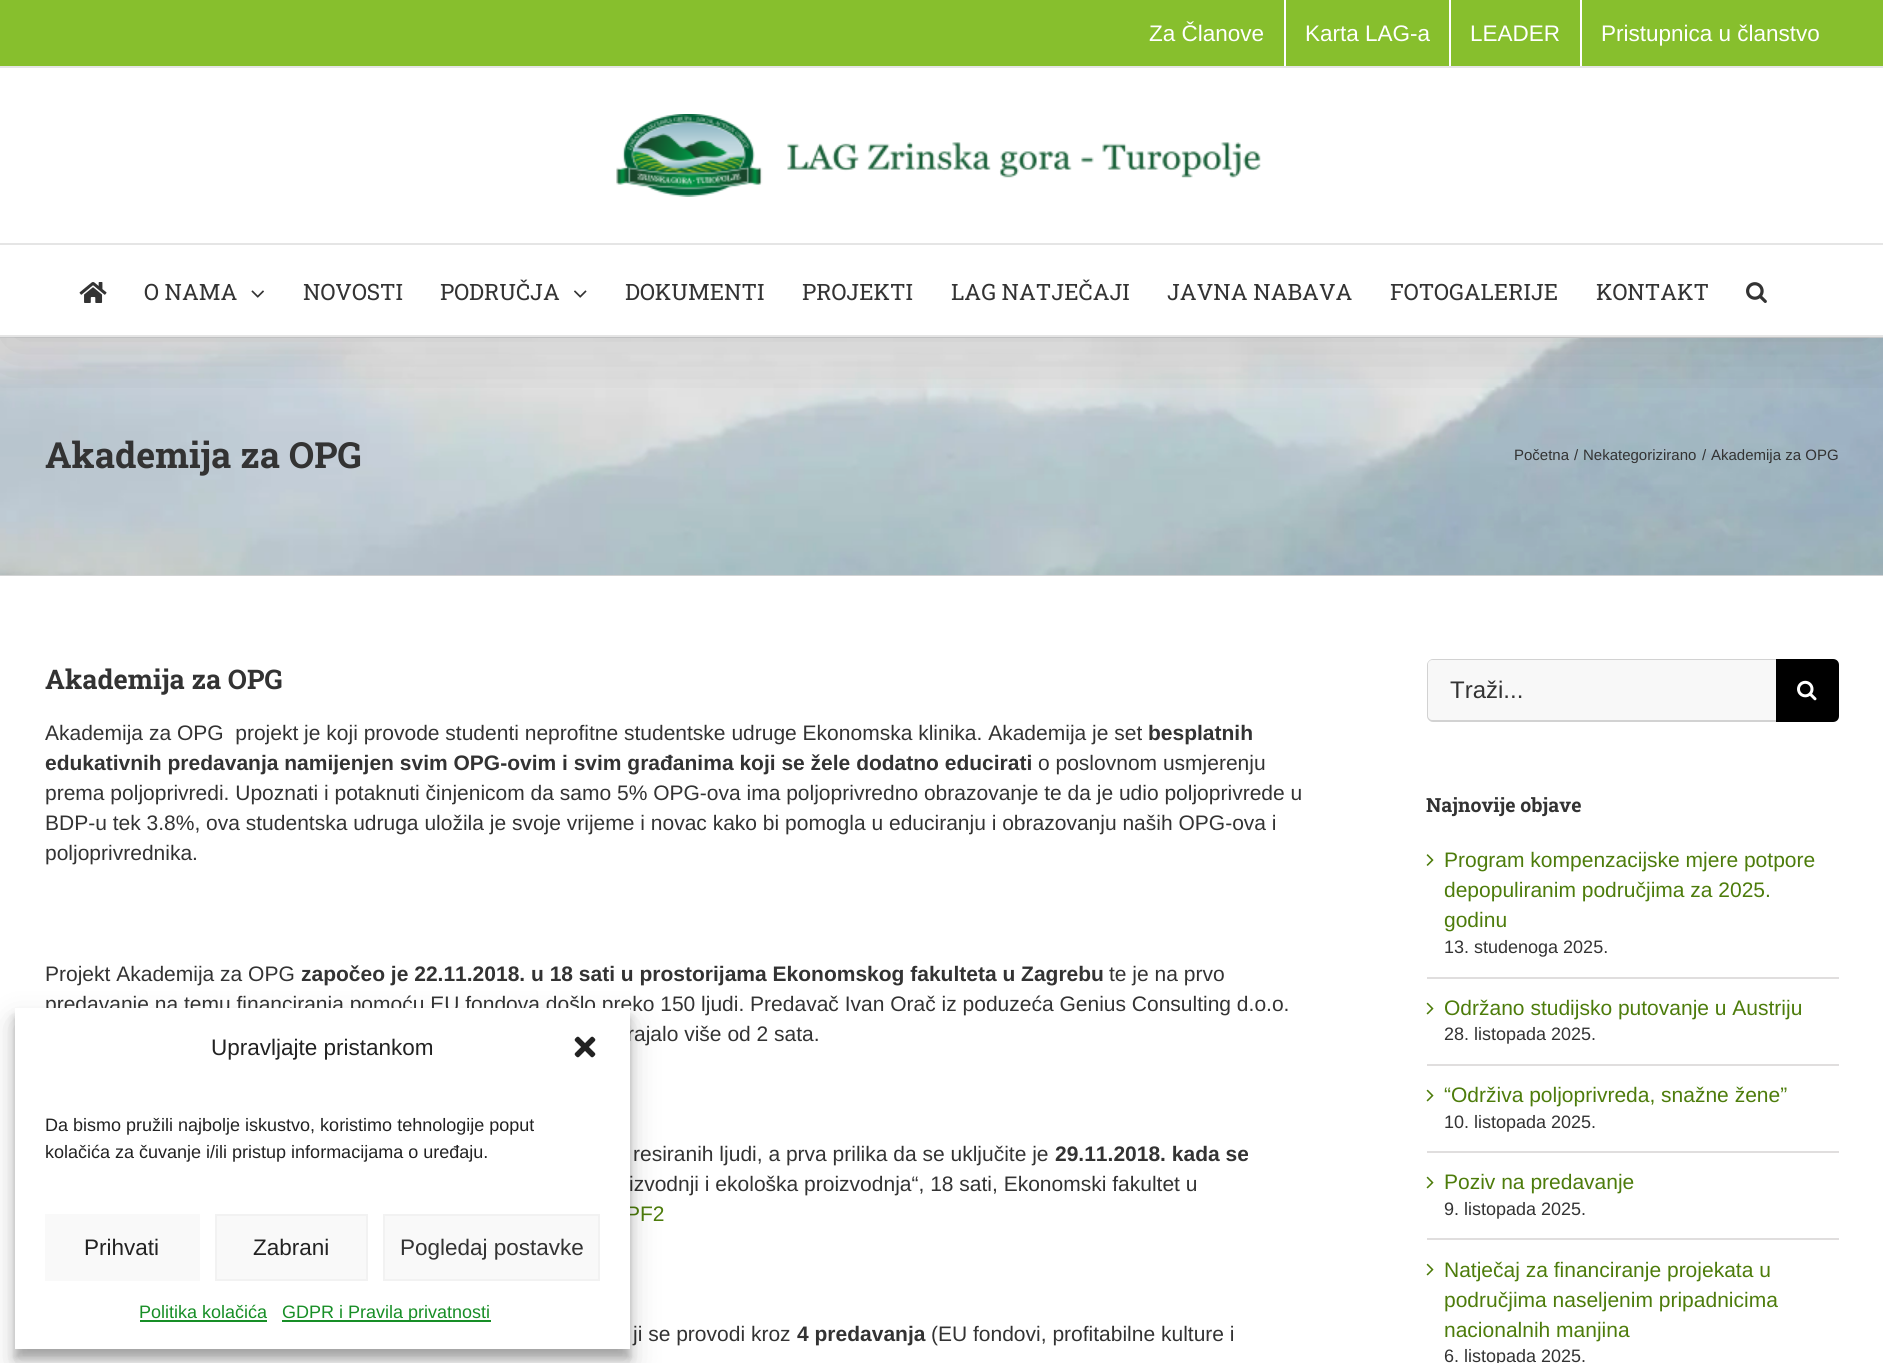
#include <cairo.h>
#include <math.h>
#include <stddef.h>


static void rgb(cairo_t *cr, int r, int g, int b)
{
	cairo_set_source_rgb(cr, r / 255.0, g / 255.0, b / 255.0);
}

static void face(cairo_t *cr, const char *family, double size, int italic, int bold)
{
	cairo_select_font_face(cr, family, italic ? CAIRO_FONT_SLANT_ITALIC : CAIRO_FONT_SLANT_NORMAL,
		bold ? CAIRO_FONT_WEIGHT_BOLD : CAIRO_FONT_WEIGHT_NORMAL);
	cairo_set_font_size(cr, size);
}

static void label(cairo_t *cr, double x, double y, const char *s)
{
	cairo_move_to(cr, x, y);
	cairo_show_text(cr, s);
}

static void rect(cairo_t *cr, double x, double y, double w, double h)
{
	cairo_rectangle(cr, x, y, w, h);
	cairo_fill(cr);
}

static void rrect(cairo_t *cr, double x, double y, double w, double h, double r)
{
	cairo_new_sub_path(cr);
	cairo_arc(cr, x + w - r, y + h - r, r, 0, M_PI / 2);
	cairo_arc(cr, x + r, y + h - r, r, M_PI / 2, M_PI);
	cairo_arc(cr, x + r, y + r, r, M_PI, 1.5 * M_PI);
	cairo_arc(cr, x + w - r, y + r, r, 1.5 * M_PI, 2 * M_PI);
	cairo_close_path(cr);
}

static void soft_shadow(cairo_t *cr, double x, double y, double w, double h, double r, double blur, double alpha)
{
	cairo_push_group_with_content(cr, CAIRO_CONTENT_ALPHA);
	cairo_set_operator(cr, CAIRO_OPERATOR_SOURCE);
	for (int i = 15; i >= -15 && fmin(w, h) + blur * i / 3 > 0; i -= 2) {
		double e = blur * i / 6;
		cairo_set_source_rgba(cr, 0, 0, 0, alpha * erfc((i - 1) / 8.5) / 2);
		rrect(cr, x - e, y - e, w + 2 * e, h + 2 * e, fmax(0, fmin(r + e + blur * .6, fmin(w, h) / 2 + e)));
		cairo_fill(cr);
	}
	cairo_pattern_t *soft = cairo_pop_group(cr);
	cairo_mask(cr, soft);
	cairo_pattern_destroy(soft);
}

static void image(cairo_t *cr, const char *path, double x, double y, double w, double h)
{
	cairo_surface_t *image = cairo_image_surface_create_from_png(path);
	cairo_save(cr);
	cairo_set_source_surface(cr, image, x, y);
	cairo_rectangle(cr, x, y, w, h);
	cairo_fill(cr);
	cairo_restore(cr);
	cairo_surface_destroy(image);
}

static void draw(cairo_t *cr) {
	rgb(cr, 255, 255, 255);
	cairo_paint(cr);
	image(cr, "image5.png", 0, 338, 1883, 237);
	rgb(cr, 210, 211, 212);
	rect(cr, 0, 337, 1883, 1);
	cairo_save(cr);
	cairo_rectangle(cr, 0, 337, 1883, 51);
	cairo_clip(cr);
	rgb(cr, 0, 0, 0);
	soft_shadow(cr, 3, 18, 1878, 330, 0, 37.5, 0.14);
	cairo_restore(cr);
	rgb(cr, 135, 191, 45);
	rect(cr, 0, 0, 1883, 66);
	rgb(cr, 229, 229, 229);
	rect(cr, 0, 66, 1883, 2);
	face(cr, "Liberation Sans", 22.5, 0, 0);
	rgb(cr, 255, 255, 255);
	label(cr, 1149, 41, "Za Članove");
	rect(cr, 1284, 0, 2, 66);
	label(cr, 1305, 41, "Karta LAG-a");
	rect(cr, 1449, 0, 2, 66);
	label(cr, 1470, 41, "LEADER");
	rect(cr, 1580, 0, 2, 66);
	label(cr, 1601, 41, "Pristupnica u članstvo");
	rgb(cr, 229, 229, 229);
	rect(cr, 0, 243, 1883, 2);
	image(cr, "image0.png", 616, 114, 645, 83);
	rect(cr, 0, 335, 1883, 2);
	image(cr, "image1.png", 79, 282, 28, 21);
	face(cr, "Roboto Slab", 22.5, 0, 0);
	rgb(cr, 51, 51, 51);
	label(cr, 144, 300, "O NAMA");
	image(cr, "image2.png", 251, 290, 13, 8);
	label(cr, 303, 300, "NOVOSTI");
	label(cr, 440, 300, "PODRUČJA");
	image(cr, "image3.png", 574, 290, 13, 8);
	label(cr, 625, 300, "DOKUMENTI");
	label(cr, 802, 300, "PROJEKTI");
	label(cr, 951, 300, "LAG NATJEČAJI");
	label(cr, 1167, 300, "JAVNA NABAVA");
	label(cr, 1390, 300, "FOTOGALERIJE");
	label(cr, 1596, 300, "KONTAKT");
	image(cr, "image4.png", 1746, 282, 21, 21);
	rgb(cr, 210, 211, 212);
	rect(cr, 0, 575, 1883, 1);
	face(cr, "Roboto Slab", 36, 0, 1);
	rgb(cr, 51, 51, 51);
	label(cr, 45, 468, "Akademija za OPG");
	face(cr, "Liberation Sans", 15, 0, 0);
	label(cr, 1514, 460, "Početna");
	label(cr, 1574, 460, "/");
	label(cr, 1583, 460, "Nekategorizirano");
	label(cr, 1702, 460, "/");
	label(cr, 1711, 460, "Akademija za OPG");
	face(cr, "Roboto Slab", 27, 0, 1);
	label(cr, 45, 689, "Akademija za OPG");
	face(cr, "Liberation Sans", 21, 0, 0);
	label(cr, 45, 740, "Akademija za OPG  projekt je koji provode studenti neprofitne studentske udruge Ekonomska klinika. Akademija je set");
	face(cr, "Liberation Sans", 21, 0, 1);
	label(cr, 1148, 740, "besplatnih");
	label(cr, 45, 770, "edukativnih predavanja namijenjen svim OPG-ovim i svim građanima koji se žele dodatno educirati");
	face(cr, "Liberation Sans", 21, 0, 0);
	label(cr, 1038, 770, "o poslovnom usmjerenju");
	label(cr, 45, 800, "prema poljoprivredi. Upoznati i potaknuti činjenicom da samo 5% OPG-ova ima poljoprivredno obrazovanje te da je udio poljoprivrede u");
	label(cr, 45, 830, "BDP-u tek 3.8%, ova studentska udruga uložila je svoje vrijeme i novac kako bi pomogla u educiranju i obrazovanju naših OPG-ova i");
	label(cr, 45, 860, "poljoprivrednika.");
	label(cr, 45, 981, "Projekt Akademija za OPG");
	face(cr, "Liberation Sans", 21, 0, 1);
	label(cr, 301, 981, "započeo je 22.11.2018. u 18 sati u prostorijama Ekonomskog fakulteta u Zagrebu");
	face(cr, "Liberation Sans", 21, 0, 0);
	label(cr, 1109, 981, "te je na prvo");
	label(cr, 45, 1011, "predavanje na temu financiranja pomoću EU fondova došlo preko 150 ljudi. Predavač Ivan Orač iz poduzeća Genius Consulting d.o.o.");
	label(cr, 627, 1041, "rajalo više od 2 sata.");
	label(cr, 633, 1161, "resiranih ljudi, a prva prilika da se uključite je");
	face(cr, "Liberation Sans", 21, 0, 1);
	label(cr, 1055, 1161, "29.11.2018. kada se");
	face(cr, "Liberation Sans", 21, 0, 0);
	label(cr, 629, 1191, "izvodnji i ekološka proizvodnja“, 18 sati, Ekonomski fakultet u");
	rgb(cr, 77, 124, 11);
	label(cr, 626, 1221, "PF2");
	rgb(cr, 51, 51, 51);
	label(cr, 633, 1341, "ji se provodi kroz");
	face(cr, "Liberation Sans", 21, 0, 1);
	label(cr, 797, 1341, "4 predavanja");
	face(cr, "Liberation Sans", 21, 0, 0);
	label(cr, 931, 1341, "(EU fondovi, profitabilne kulture i");
	rgb(cr, 248, 248, 248);
	cairo_new_path(cr);
	cairo_move_to(cr, 1433, 659);
	cairo_line_to(cr, 1776, 659);
	cairo_line_to(cr, 1776, 722);
	cairo_line_to(cr, 1433, 722);
	cairo_curve_to(cr, 1429.5, 722, 1427, 719.5, 1427, 716);
	cairo_line_to(cr, 1427, 665);
	cairo_curve_to(cr, 1427, 661.5, 1429.5, 659, 1433, 659);
	cairo_close_path(cr);
	cairo_fill(cr);
	rgb(cr, 210, 210, 210);
	cairo_new_path(cr);
	cairo_move_to(cr, 1432, 660);
	cairo_line_to(cr, 1776, 660);
	cairo_line_to(cr, 1776, 659);
	cairo_line_to(cr, 1433, 659);
	cairo_curve_to(cr, 1430, 659, 1427, 662, 1427, 665);
	cairo_line_to(cr, 1427, 716);
	cairo_curve_to(cr, 1427, 719, 1430, 722, 1433, 722);
	cairo_line_to(cr, 1776, 722);
	cairo_line_to(cr, 1776, 720);
	cairo_line_to(cr, 1432, 720);
	cairo_curve_to(cr, 1430, 720, 1428, 718, 1428, 716);
	cairo_line_to(cr, 1428, 664);
	cairo_curve_to(cr, 1428, 662, 1430, 660, 1432, 660);
	cairo_close_path(cr);
	cairo_fill(cr);
	face(cr, "Liberation Sans", 24, 0, 0);
	rgb(cr, 51, 51, 51);
	label(cr, 1450, 698, "Traži...");
	rgb(cr, 0, 0, 0);
	cairo_new_path(cr);
	cairo_move_to(cr, 1776, 659);
	cairo_line_to(cr, 1833, 659);
	cairo_curve_to(cr, 1836.5, 659, 1839, 661.5, 1839, 665);
	cairo_line_to(cr, 1839, 716);
	cairo_curve_to(cr, 1839, 719.5, 1836.5, 722, 1833, 722);
	cairo_line_to(cr, 1776, 722);
	cairo_close_path(cr);
	cairo_fill(cr);
	image(cr, "image6.png", 1797, 680, 20, 21);
	face(cr, "Roboto Slab", 19.5, 0, 1);
	rgb(cr, 51, 51, 51);
	label(cr, 1426, 812, "Najnovije objave");
	rgb(cr, 224, 222, 222);
	rect(cr, 1427, 977, 412, 2);
	image(cr, "image7.png", 1426, 854, 8, 12);
	face(cr, "Liberation Sans", 21, 0, 0);
	rgb(cr, 77, 124, 11);
	label(cr, 1444, 867, "Program kompenzacijske mjere potpore");
	label(cr, 1444, 897, "depopuliranim područjima za 2025.");
	label(cr, 1444, 927, "godinu");
	face(cr, "Liberation Sans", 18, 0, 0);
	rgb(cr, 51, 51, 51);
	label(cr, 1444, 953, "13. studenoga 2025.");
	rgb(cr, 224, 222, 222);
	rect(cr, 1427, 1064, 412, 2);
	image(cr, "image8.png", 1426, 1002, 8, 13);
	face(cr, "Liberation Sans", 21, 0, 0);
	rgb(cr, 77, 124, 11);
	label(cr, 1444, 1015, "Održano studijsko putovanje u Austriju");
	face(cr, "Liberation Sans", 18, 0, 0);
	rgb(cr, 51, 51, 51);
	label(cr, 1444, 1040, "28. listopada 2025.");
	rgb(cr, 224, 222, 222);
	rect(cr, 1427, 1151, 412, 2);
	image(cr, "image8.png", 1426, 1089, 8, 13);
	face(cr, "Liberation Sans", 21, 0, 0);
	rgb(cr, 77, 124, 11);
	label(cr, 1444, 1102, "“Održiva poljoprivreda, snažne žene”");
	face(cr, "Liberation Sans", 18, 0, 0);
	rgb(cr, 51, 51, 51);
	label(cr, 1444, 1128, "10. listopada 2025.");
	rgb(cr, 224, 222, 222);
	rect(cr, 1427, 1238, 412, 2);
	image(cr, "image8.png", 1426, 1176, 8, 13);
	face(cr, "Liberation Sans", 21, 0, 0);
	rgb(cr, 77, 124, 11);
	label(cr, 1444, 1189, "Poziv na predavanje");
	face(cr, "Liberation Sans", 18, 0, 0);
	rgb(cr, 51, 51, 51);
	label(cr, 1444, 1215, "9. listopada 2025.");
	image(cr, "image8.png", 1426, 1263, 8, 13);
	face(cr, "Liberation Sans", 21, 0, 0);
	rgb(cr, 77, 124, 11);
	label(cr, 1444, 1277, "Natječaj za financiranje projekata u");
	label(cr, 1444, 1307, "područjima naseljenim pripadnicima");
	label(cr, 1444, 1337, "nacionalnih manjina");
	face(cr, "Liberation Sans", 18, 0, 0);
	rgb(cr, 51, 51, 51);
	label(cr, 1444, 1362, "6. listopada 2025.");
	rgb(cr, 0, 0, 0);
	soft_shadow(cr, 15, 1017, 615, 341, 0, 4.5, 0.23);
	soft_shadow(cr, 15, 1023, 615, 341, 0, 15, 0.19);
	rgb(cr, 255, 255, 255);
	rect(cr, 15, 1008, 615, 341);
	face(cr, "Liberation Sans", 22.5, 0, 0);
	rgb(cr, 34, 34, 34);
	label(cr, 211, 1055, "Upravljajte pristankom");
	image(cr, "image9.png", 574, 1036, 22, 22);
	face(cr, "Liberation Sans", 18, 0, 0);
	label(cr, 45, 1131, "Da bismo pružili najbolje iskustvo, koristimo tehnologije poput");
	label(cr, 45, 1158, "kolačića za čuvanje i/ili pristup informacijama o uređaju.");
	rgb(cr, 249, 249, 249);
	rect(cr, 45, 1214, 155, 67);
	face(cr, "Liberation Sans", 22.5, 0, 0);
	rgb(cr, 34, 34, 34);
	label(cr, 84, 1255, "Prihvati");
	rgb(cr, 249, 249, 249);
	cairo_rectangle(cr, 216, 1215, 151, 65);
	cairo_fill_preserve(cr);
	rgb(cr, 242, 242, 242);
	cairo_stroke(cr);
	rgb(cr, 34, 34, 34);
	label(cr, 253, 1255, "Zabrani");
	rgb(cr, 249, 249, 249);
	cairo_rectangle(cr, 384, 1215, 215, 65);
	cairo_fill_preserve(cr);
	rgb(cr, 242, 242, 242);
	cairo_stroke(cr);
	rgb(cr, 51, 51, 51);
	label(cr, 400, 1255, "Pogledaj postavke");
	face(cr, "Liberation Sans", 18, 0, 0);
	rgb(cr, 23, 142, 38);
	label(cr, 139, 1318, "Politika kolačića");
	rect(cr, 140, 1320, 127, 2);
	rect(cr, 282, 1320, 209, 2);
	label(cr, 282, 1318, "GDPR i Pravila privatnosti");
}

int main(void) {
	cairo_surface_t *surface = cairo_image_surface_create(CAIRO_FORMAT_RGB24, 1883, 1363);
	cairo_t *cr = cairo_create(surface);
	cairo_font_options_t *options = cairo_font_options_create();
	cairo_font_options_set_hint_metrics(options, CAIRO_HINT_METRICS_OFF);
	cairo_font_options_set_hint_style(options, CAIRO_HINT_STYLE_NONE);
	cairo_set_font_options(cr, options);
	cairo_set_miter_limit(cr, 4);
	draw(cr);
	cairo_surface_write_to_png(surface, "render.png");
	cairo_font_options_destroy(options);
	cairo_destroy(cr);
	cairo_surface_destroy(surface);
	return 0;
}
